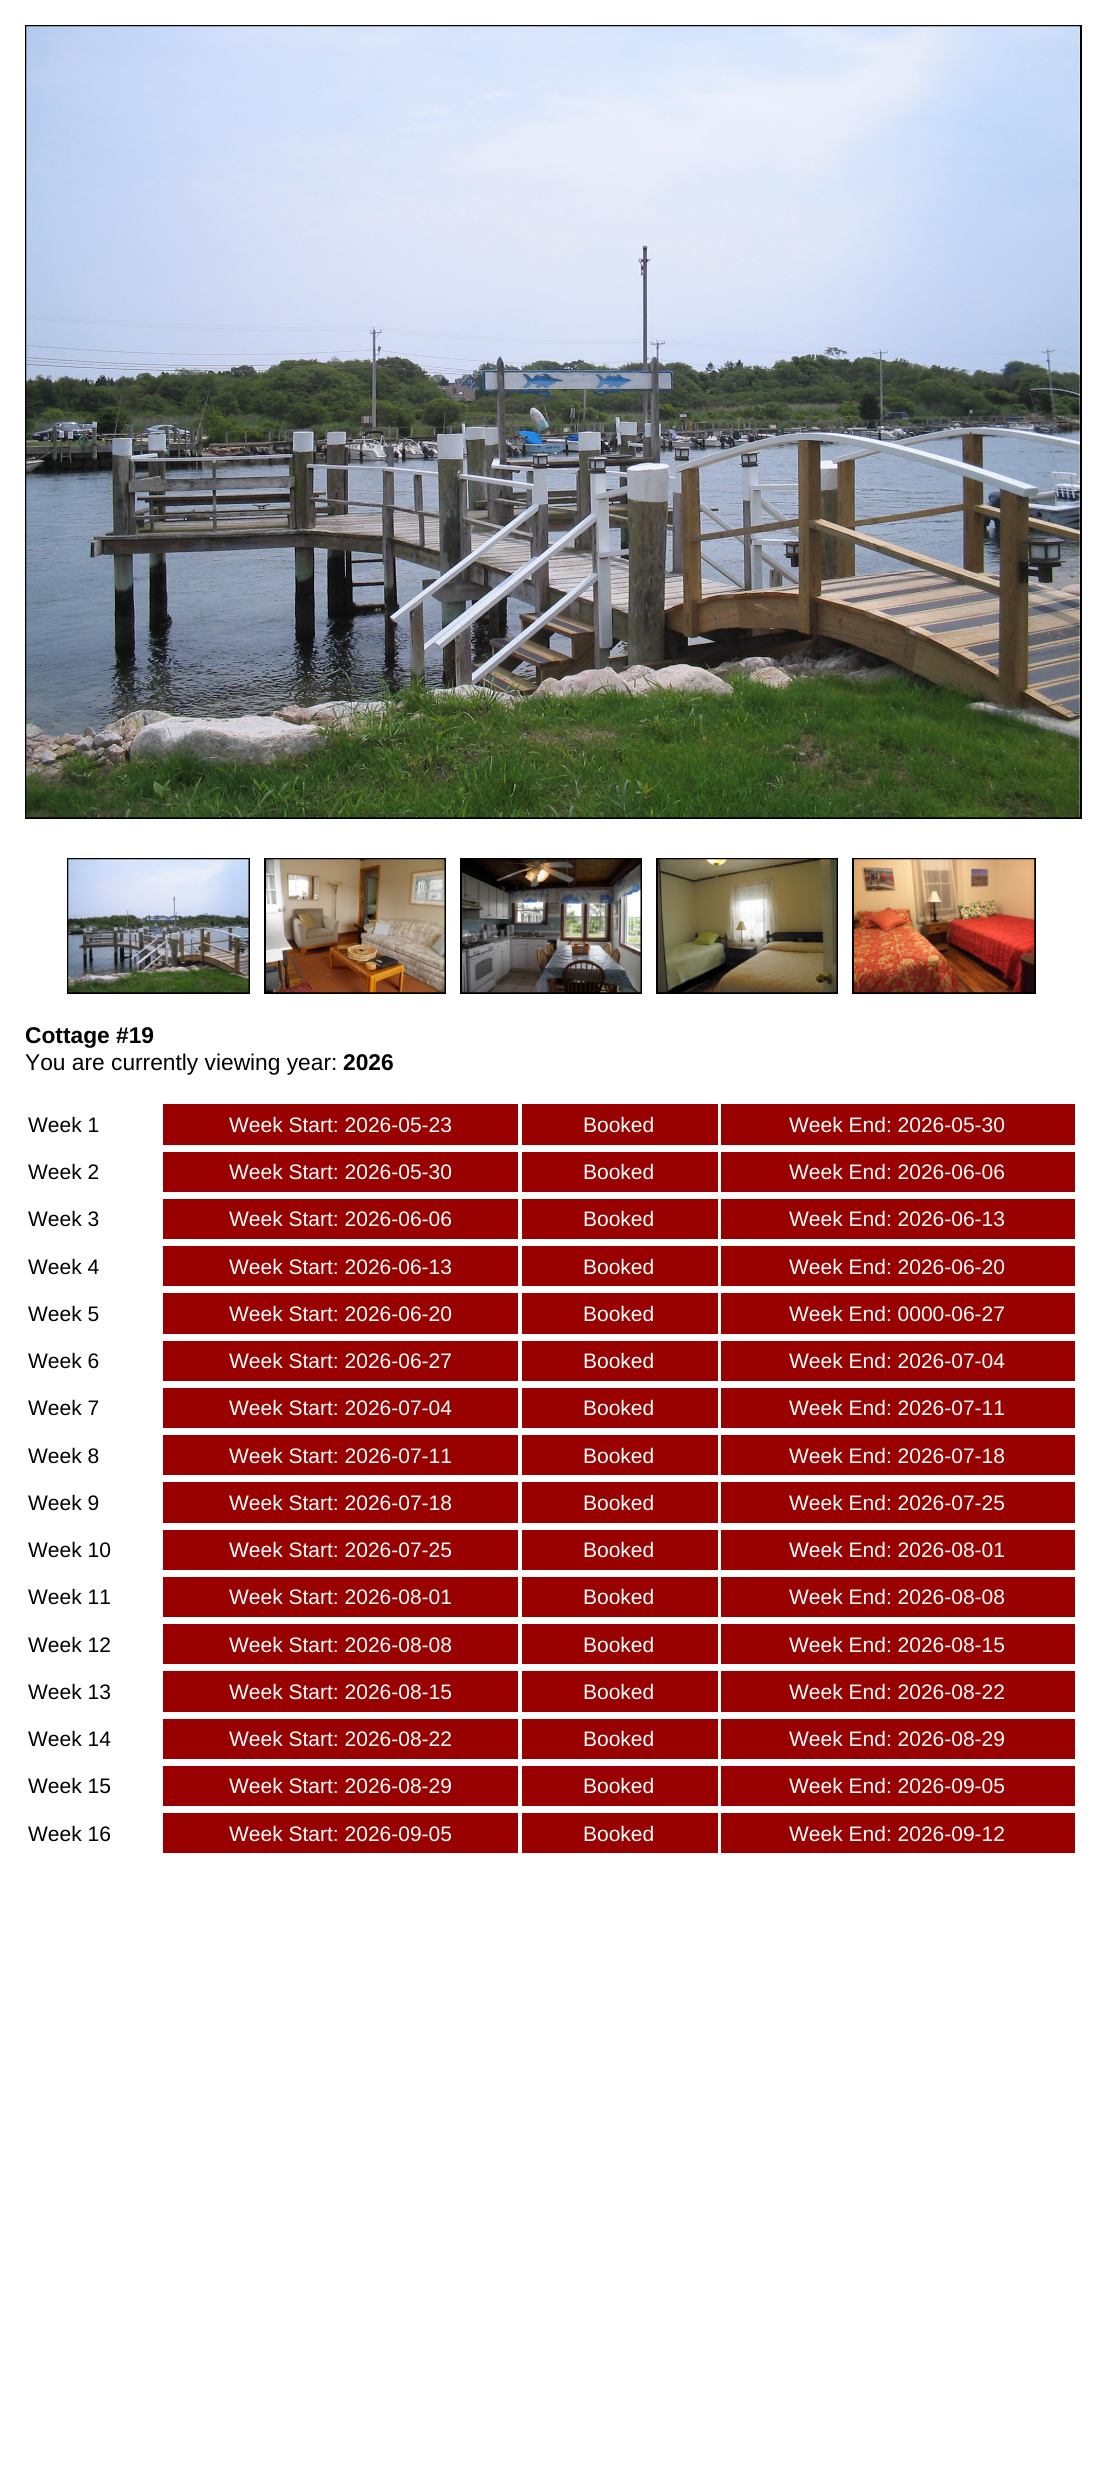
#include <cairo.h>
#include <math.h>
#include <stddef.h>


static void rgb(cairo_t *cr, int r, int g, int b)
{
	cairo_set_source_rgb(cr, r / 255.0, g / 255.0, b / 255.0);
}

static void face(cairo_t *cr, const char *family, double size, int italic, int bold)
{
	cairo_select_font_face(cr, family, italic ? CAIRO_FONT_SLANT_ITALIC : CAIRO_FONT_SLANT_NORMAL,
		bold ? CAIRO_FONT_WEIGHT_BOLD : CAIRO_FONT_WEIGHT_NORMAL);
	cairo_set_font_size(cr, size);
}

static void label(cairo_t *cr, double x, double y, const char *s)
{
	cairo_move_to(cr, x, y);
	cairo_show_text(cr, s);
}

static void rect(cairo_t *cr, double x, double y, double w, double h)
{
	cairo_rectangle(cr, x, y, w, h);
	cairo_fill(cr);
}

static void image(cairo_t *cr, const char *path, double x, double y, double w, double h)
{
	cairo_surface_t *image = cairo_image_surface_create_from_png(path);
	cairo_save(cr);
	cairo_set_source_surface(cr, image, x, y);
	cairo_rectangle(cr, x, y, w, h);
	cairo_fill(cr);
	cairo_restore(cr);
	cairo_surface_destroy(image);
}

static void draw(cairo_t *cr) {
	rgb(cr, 255, 255, 255);
	cairo_paint(cr);
	cairo_rectangle(cr, 26, 26, 1055, 792);
	rgb(cr, 0, 0, 0);
	cairo_stroke(cr);
	image(cr, "image0.png", 26, 26, 1054, 792);
	cairo_rectangle(cr, 68, 859, 181, 134);
	cairo_stroke(cr);
	cairo_rectangle(cr, 265, 859, 180, 134);
	cairo_stroke(cr);
	cairo_rectangle(cr, 461, 859, 180, 134);
	cairo_stroke(cr);
	cairo_rectangle(cr, 657, 859, 180, 134);
	cairo_stroke(cr);
	cairo_rectangle(cr, 853, 859, 182, 134);
	cairo_stroke(cr);
	image(cr, "image1.png", 68, 859, 181, 134);
	image(cr, "image2.png", 266, 859, 179, 134);
	image(cr, "image3.png", 462, 859, 179, 134);
	image(cr, "image4.png", 658, 859, 179, 134);
	image(cr, "image5.png", 854, 859, 181, 134);
	face(cr, "Liberation Sans", 22.75, 0, 1);
	label(cr, 25, 1043, "Cottage #19");
	face(cr, "Liberation Sans", 22.75, 0, 0);
	label(cr, 25, 1070, "You are currently viewing year:");
	face(cr, "Liberation Sans", 22.75, 0, 1);
	label(cr, 343, 1070, "2026");
	face(cr, "Liberation Sans", 21, 0, 0);
	label(cr, 28, 1132, "Week 1");
	rgb(cr, 153, 0, 0);
	rect(cr, 163, 1104, 355, 41);
	rgb(cr, 255, 255, 255);
	label(cr, 229, 1132, "Week Start: 2026-05-23");
	rgb(cr, 153, 0, 0);
	rect(cr, 522, 1104, 196, 41);
	rgb(cr, 255, 255, 255);
	label(cr, 583, 1132, "Booked");
	rgb(cr, 153, 0, 0);
	rect(cr, 721, 1104, 354, 41);
	rgb(cr, 255, 255, 255);
	label(cr, 789, 1132, "Week End: 2026-05-30");
	rgb(cr, 0, 0, 0);
	label(cr, 28, 1179, "Week 2");
	rgb(cr, 153, 0, 0);
	rect(cr, 163, 1152, 355, 40);
	rgb(cr, 255, 255, 255);
	label(cr, 229, 1179, "Week Start: 2026-05-30");
	rgb(cr, 153, 0, 0);
	rect(cr, 522, 1152, 196, 40);
	rgb(cr, 255, 255, 255);
	label(cr, 583, 1179, "Booked");
	rgb(cr, 153, 0, 0);
	rect(cr, 721, 1152, 354, 40);
	rgb(cr, 255, 255, 255);
	label(cr, 789, 1179, "Week End: 2026-06-06");
	rgb(cr, 0, 0, 0);
	label(cr, 28, 1226, "Week 3");
	rgb(cr, 153, 0, 0);
	rect(cr, 163, 1199, 355, 40);
	rgb(cr, 255, 255, 255);
	label(cr, 229, 1226, "Week Start: 2026-06-06");
	rgb(cr, 153, 0, 0);
	rect(cr, 522, 1199, 196, 40);
	rgb(cr, 255, 255, 255);
	label(cr, 583, 1226, "Booked");
	rgb(cr, 153, 0, 0);
	rect(cr, 721, 1199, 354, 40);
	rgb(cr, 255, 255, 255);
	label(cr, 789, 1226, "Week End: 2026-06-13");
	rgb(cr, 0, 0, 0);
	label(cr, 28, 1274, "Week 4");
	rgb(cr, 153, 0, 0);
	rect(cr, 163, 1246, 355, 40);
	rgb(cr, 255, 255, 255);
	label(cr, 229, 1274, "Week Start: 2026-06-13");
	rgb(cr, 153, 0, 0);
	rect(cr, 522, 1246, 196, 40);
	rgb(cr, 255, 255, 255);
	label(cr, 583, 1274, "Booked");
	rgb(cr, 153, 0, 0);
	rect(cr, 721, 1246, 354, 40);
	rgb(cr, 255, 255, 255);
	label(cr, 789, 1274, "Week End: 2026-06-20");
	rgb(cr, 0, 0, 0);
	label(cr, 28, 1321, "Week 5");
	rgb(cr, 153, 0, 0);
	rect(cr, 163, 1293, 355, 41);
	rgb(cr, 255, 255, 255);
	label(cr, 229, 1321, "Week Start: 2026-06-20");
	rgb(cr, 153, 0, 0);
	rect(cr, 522, 1293, 196, 41);
	rgb(cr, 255, 255, 255);
	label(cr, 583, 1321, "Booked");
	rgb(cr, 153, 0, 0);
	rect(cr, 721, 1293, 354, 41);
	rgb(cr, 255, 255, 255);
	label(cr, 789, 1321, "Week End: 0000-06-27");
	rgb(cr, 0, 0, 0);
	label(cr, 28, 1368, "Week 6");
	rgb(cr, 153, 0, 0);
	rect(cr, 163, 1341, 355, 40);
	rgb(cr, 255, 255, 255);
	label(cr, 229, 1368, "Week Start: 2026-06-27");
	rgb(cr, 153, 0, 0);
	rect(cr, 522, 1341, 196, 40);
	rgb(cr, 255, 255, 255);
	label(cr, 583, 1368, "Booked");
	rgb(cr, 153, 0, 0);
	rect(cr, 721, 1341, 354, 40);
	rgb(cr, 255, 255, 255);
	label(cr, 789, 1368, "Week End: 2026-07-04");
	rgb(cr, 0, 0, 0);
	label(cr, 28, 1415, "Week 7");
	rgb(cr, 153, 0, 0);
	rect(cr, 163, 1388, 355, 40);
	rgb(cr, 255, 255, 255);
	label(cr, 229, 1415, "Week Start: 2026-07-04");
	rgb(cr, 153, 0, 0);
	rect(cr, 522, 1388, 196, 40);
	rgb(cr, 255, 255, 255);
	label(cr, 583, 1415, "Booked");
	rgb(cr, 153, 0, 0);
	rect(cr, 721, 1388, 354, 40);
	rgb(cr, 255, 255, 255);
	label(cr, 789, 1415, "Week End: 2026-07-11");
	rgb(cr, 0, 0, 0);
	label(cr, 28, 1463, "Week 8");
	rgb(cr, 153, 0, 0);
	rect(cr, 163, 1435, 355, 40);
	rgb(cr, 255, 255, 255);
	label(cr, 229, 1463, "Week Start: 2026-07-11");
	rgb(cr, 153, 0, 0);
	rect(cr, 522, 1435, 196, 40);
	rgb(cr, 255, 255, 255);
	label(cr, 583, 1463, "Booked");
	rgb(cr, 153, 0, 0);
	rect(cr, 721, 1435, 354, 40);
	rgb(cr, 255, 255, 255);
	label(cr, 789, 1463, "Week End: 2026-07-18");
	rgb(cr, 0, 0, 0);
	label(cr, 28, 1510, "Week 9");
	rgb(cr, 153, 0, 0);
	rect(cr, 163, 1482, 355, 41);
	rgb(cr, 255, 255, 255);
	label(cr, 229, 1510, "Week Start: 2026-07-18");
	rgb(cr, 153, 0, 0);
	rect(cr, 522, 1482, 196, 41);
	rgb(cr, 255, 255, 255);
	label(cr, 583, 1510, "Booked");
	rgb(cr, 153, 0, 0);
	rect(cr, 721, 1482, 354, 41);
	rgb(cr, 255, 255, 255);
	label(cr, 789, 1510, "Week End: 2026-07-25");
	rgb(cr, 0, 0, 0);
	label(cr, 28, 1557, "Week 10");
	rgb(cr, 153, 0, 0);
	rect(cr, 163, 1530, 355, 40);
	rgb(cr, 255, 255, 255);
	label(cr, 229, 1557, "Week Start: 2026-07-25");
	rgb(cr, 153, 0, 0);
	rect(cr, 522, 1530, 196, 40);
	rgb(cr, 255, 255, 255);
	label(cr, 583, 1557, "Booked");
	rgb(cr, 153, 0, 0);
	rect(cr, 721, 1530, 354, 40);
	rgb(cr, 255, 255, 255);
	label(cr, 789, 1557, "Week End: 2026-08-01");
	rgb(cr, 0, 0, 0);
	label(cr, 28, 1604, "Week 11");
	rgb(cr, 153, 0, 0);
	rect(cr, 163, 1577, 355, 40);
	rgb(cr, 255, 255, 255);
	label(cr, 229, 1604, "Week Start: 2026-08-01");
	rgb(cr, 153, 0, 0);
	rect(cr, 522, 1577, 196, 40);
	rgb(cr, 255, 255, 255);
	label(cr, 583, 1604, "Booked");
	rgb(cr, 153, 0, 0);
	rect(cr, 721, 1577, 354, 40);
	rgb(cr, 255, 255, 255);
	label(cr, 789, 1604, "Week End: 2026-08-08");
	rgb(cr, 0, 0, 0);
	label(cr, 28, 1652, "Week 12");
	rgb(cr, 153, 0, 0);
	rect(cr, 163, 1624, 355, 40);
	rgb(cr, 255, 255, 255);
	label(cr, 229, 1652, "Week Start: 2026-08-08");
	rgb(cr, 153, 0, 0);
	rect(cr, 522, 1624, 196, 40);
	rgb(cr, 255, 255, 255);
	label(cr, 583, 1652, "Booked");
	rgb(cr, 153, 0, 0);
	rect(cr, 721, 1624, 354, 40);
	rgb(cr, 255, 255, 255);
	label(cr, 789, 1652, "Week End: 2026-08-15");
	rgb(cr, 0, 0, 0);
	label(cr, 28, 1699, "Week 13");
	rgb(cr, 153, 0, 0);
	rect(cr, 163, 1671, 355, 41);
	rgb(cr, 255, 255, 255);
	label(cr, 229, 1699, "Week Start: 2026-08-15");
	rgb(cr, 153, 0, 0);
	rect(cr, 522, 1671, 196, 41);
	rgb(cr, 255, 255, 255);
	label(cr, 583, 1699, "Booked");
	rgb(cr, 153, 0, 0);
	rect(cr, 721, 1671, 354, 41);
	rgb(cr, 255, 255, 255);
	label(cr, 789, 1699, "Week End: 2026-08-22");
	rgb(cr, 0, 0, 0);
	label(cr, 28, 1746, "Week 14");
	rgb(cr, 153, 0, 0);
	rect(cr, 163, 1719, 355, 40);
	rgb(cr, 255, 255, 255);
	label(cr, 229, 1746, "Week Start: 2026-08-22");
	rgb(cr, 153, 0, 0);
	rect(cr, 522, 1719, 196, 40);
	rgb(cr, 255, 255, 255);
	label(cr, 583, 1746, "Booked");
	rgb(cr, 153, 0, 0);
	rect(cr, 721, 1719, 354, 40);
	rgb(cr, 255, 255, 255);
	label(cr, 789, 1746, "Week End: 2026-08-29");
	rgb(cr, 0, 0, 0);
	label(cr, 28, 1793, "Week 15");
	rgb(cr, 153, 0, 0);
	rect(cr, 163, 1766, 355, 40);
	rgb(cr, 255, 255, 255);
	label(cr, 229, 1793, "Week Start: 2026-08-29");
	rgb(cr, 153, 0, 0);
	rect(cr, 522, 1766, 196, 40);
	rgb(cr, 255, 255, 255);
	label(cr, 583, 1793, "Booked");
	rgb(cr, 153, 0, 0);
	rect(cr, 721, 1766, 354, 40);
	rgb(cr, 255, 255, 255);
	label(cr, 789, 1793, "Week End: 2026-09-05");
	rgb(cr, 0, 0, 0);
	label(cr, 28, 1841, "Week 16");
	rgb(cr, 153, 0, 0);
	rect(cr, 163, 1813, 355, 40);
	rgb(cr, 255, 255, 255);
	label(cr, 229, 1841, "Week Start: 2026-09-05");
	rgb(cr, 153, 0, 0);
	rect(cr, 522, 1813, 196, 40);
	rgb(cr, 255, 255, 255);
	label(cr, 583, 1841, "Booked");
	rgb(cr, 153, 0, 0);
	rect(cr, 721, 1813, 354, 40);
	rgb(cr, 255, 255, 255);
	label(cr, 789, 1841, "Week End: 2026-09-12");
}

int main(void) {
	cairo_surface_t *surface = cairo_image_surface_create(CAIRO_FORMAT_RGB24, 1102, 2482);
	cairo_t *cr = cairo_create(surface);
	cairo_font_options_t *options = cairo_font_options_create();
	cairo_font_options_set_hint_metrics(options, CAIRO_HINT_METRICS_OFF);
	cairo_font_options_set_hint_style(options, CAIRO_HINT_STYLE_NONE);
	cairo_set_font_options(cr, options);
	cairo_set_miter_limit(cr, 4);
	draw(cr);
	cairo_surface_write_to_png(surface, "render.png");
	cairo_font_options_destroy(options);
	cairo_destroy(cr);
	cairo_surface_destroy(surface);
	return 0;
}
